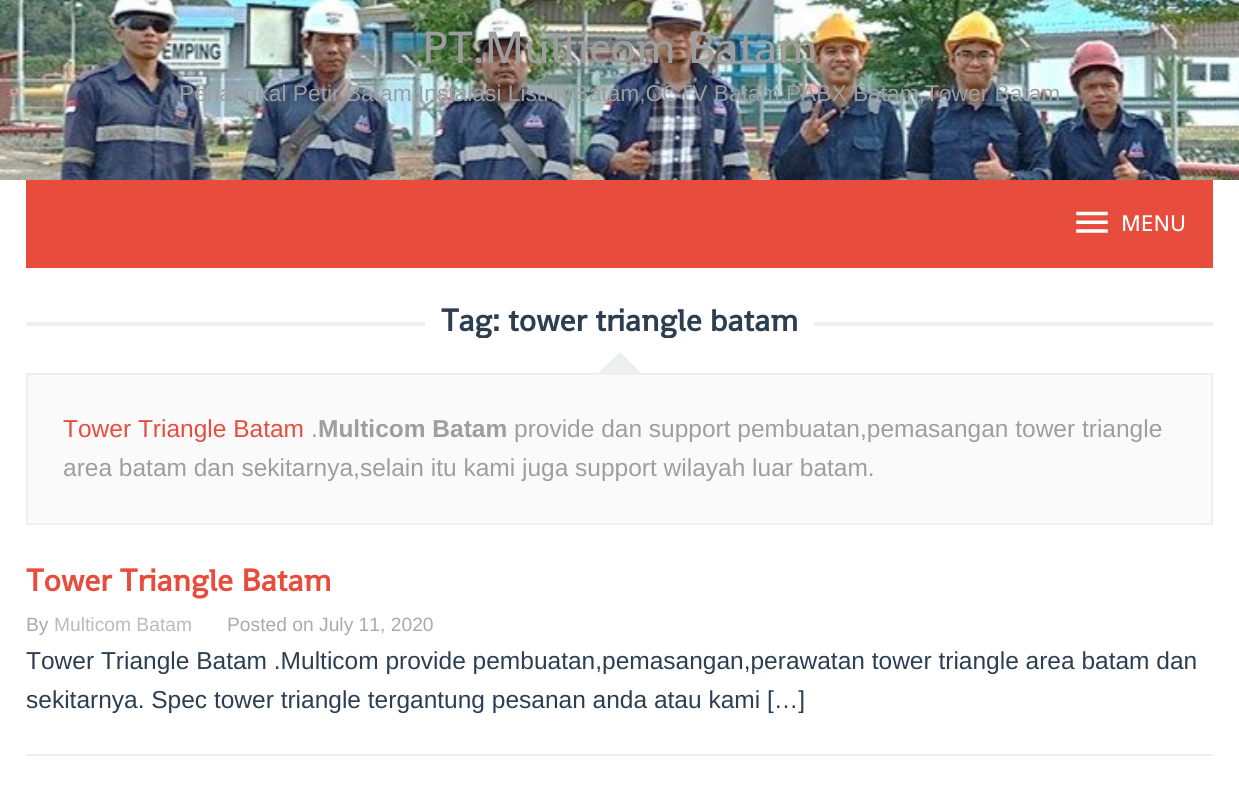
#include <cairo.h>
#include <math.h>
#include <stddef.h>


static void rgb(cairo_t *cr, int r, int g, int b)
{
	cairo_set_source_rgb(cr, r / 255.0, g / 255.0, b / 255.0);
}

static void face(cairo_t *cr, const char *family, double size, int italic, int bold)
{
	cairo_select_font_face(cr, family, italic ? CAIRO_FONT_SLANT_ITALIC : CAIRO_FONT_SLANT_NORMAL,
		bold ? CAIRO_FONT_WEIGHT_BOLD : CAIRO_FONT_WEIGHT_NORMAL);
	cairo_set_font_size(cr, size);
}

static void label(cairo_t *cr, double x, double y, const char *s)
{
	cairo_move_to(cr, x, y);
	cairo_show_text(cr, s);
}

static void rect(cairo_t *cr, double x, double y, double w, double h)
{
	cairo_rectangle(cr, x, y, w, h);
	cairo_fill(cr);
}

static void image(cairo_t *cr, const char *path, double x, double y, double w, double h)
{
	cairo_surface_t *image = cairo_image_surface_create_from_png(path);
	cairo_save(cr);
	cairo_set_source_surface(cr, image, x, y);
	cairo_rectangle(cr, x, y, w, h);
	cairo_fill(cr);
	cairo_restore(cr);
	cairo_surface_destroy(image);
}

static void draw(cairo_t *cr) {
	rgb(cr, 255, 255, 255);
	cairo_paint(cr);
	image(cr, "image0.png", 0, 0, 1239, 180);
	face(cr, "Shanti", 45.5, 0, 0);
	rgb(cr, 158, 158, 158);
	label(cr, 422, 63, "PT.Multicom Batam");
	face(cr, "Liberation Sans", 22.75, 0, 0);
	label(cr, 179, 101, "Penangkal Petir Batam,Instalasi Listrik Batam,CCTV Batam,PABX Batam,Tower Batam");
	rgb(cr, 231, 76, 60);
	rect(cr, 26, 180, 1187, 88);
	image(cr, "image1.png", 1076, 211, 32, 22);
	face(cr, "Shanti", 22.75, 0, 0);
	rgb(cr, 255, 255, 255);
	label(cr, 1121, 231, "MENU");
	rgb(cr, 236, 240, 241);
	rect(cr, 26, 322, 399, 4);
	cairo_save(cr);
	cairo_rectangle(cr, 26, 303, 1187, 35);
	cairo_clip(cr);
	face(cr, "Shanti", 31.5, 0, 1);
	rgb(cr, 44, 62, 80);
	label(cr, 441, 331, "Tag: tower triangle batam");
	cairo_restore(cr);
	rect(cr, 814, 322, 399, 4);
	rgb(cr, 250, 250, 250);
	cairo_rectangle(cr, 27, 374, 1185, 150);
	cairo_fill_preserve(cr);
	rgb(cr, 236, 240, 241);
	cairo_stroke(cr);
	cairo_new_path(cr);
	cairo_move_to(cr, 642, 374);
	cairo_line_to(cr, 597, 374);
	cairo_line_to(cr, 620, 352);
	cairo_close_path(cr);
	cairo_fill(cr);
	face(cr, "Liberation Sans", 24.5, 0, 0);
	rgb(cr, 231, 76, 60);
	label(cr, 63, 437, "Tower Triangle Batam");
	rgb(cr, 158, 158, 158);
	label(cr, 311, 437, ".");
	face(cr, "Liberation Sans", 24.5, 0, 1);
	label(cr, 318, 437, "Multicom Batam");
	face(cr, "Liberation Sans", 24.5, 0, 0);
	label(cr, 514, 437, "provide dan support pembuatan,pemasangan tower triangle");
	label(cr, 63, 476, "area batam dan sekitarnya,selain itu kami juga support wilayah luar batam.");
	rgb(cr, 236, 240, 241);
	rect(cr, 26, 754, 1187, 2);
	face(cr, "Shanti", 31.5, 0, 1);
	rgb(cr, 231, 76, 60);
	label(cr, 26, 591, "Tower Triangle Batam");
	face(cr, "Liberation Sans", 19.25, 0, 0);
	rgb(cr, 170, 170, 170);
	label(cr, 26, 631, "By");
	rgb(cr, 187, 187, 187);
	label(cr, 54, 631, "Multicom Batam");
	rgb(cr, 170, 170, 170);
	label(cr, 227, 631, "Posted on July 11, 2020");
	face(cr, "Liberation Sans", 24.5, 0, 0);
	rgb(cr, 44, 62, 80);
	label(cr, 26, 669, "Tower Triangle Batam .Multicom provide pembuatan,pemasangan,perawatan tower triangle area batam dan");
	label(cr, 26, 708, "sekitarnya. Spec tower triangle tergantung pesanan anda atau kami […]");
}

int main(void) {
	cairo_surface_t *surface = cairo_image_surface_create(CAIRO_FORMAT_RGB24, 1239, 809);
	cairo_t *cr = cairo_create(surface);
	cairo_font_options_t *options = cairo_font_options_create();
	cairo_font_options_set_hint_metrics(options, CAIRO_HINT_METRICS_OFF);
	cairo_font_options_set_hint_style(options, CAIRO_HINT_STYLE_NONE);
	cairo_set_font_options(cr, options);
	cairo_set_miter_limit(cr, 4);
	draw(cr);
	cairo_surface_write_to_png(surface, "render.png");
	cairo_font_options_destroy(options);
	cairo_destroy(cr);
	cairo_surface_destroy(surface);
	return 0;
}
